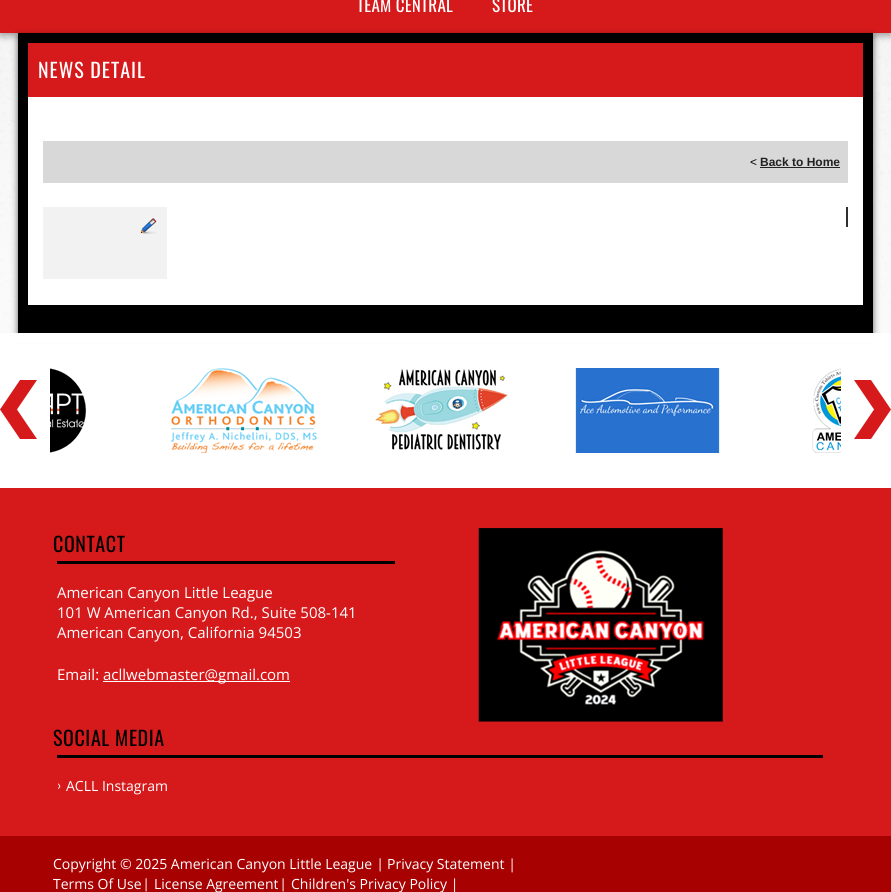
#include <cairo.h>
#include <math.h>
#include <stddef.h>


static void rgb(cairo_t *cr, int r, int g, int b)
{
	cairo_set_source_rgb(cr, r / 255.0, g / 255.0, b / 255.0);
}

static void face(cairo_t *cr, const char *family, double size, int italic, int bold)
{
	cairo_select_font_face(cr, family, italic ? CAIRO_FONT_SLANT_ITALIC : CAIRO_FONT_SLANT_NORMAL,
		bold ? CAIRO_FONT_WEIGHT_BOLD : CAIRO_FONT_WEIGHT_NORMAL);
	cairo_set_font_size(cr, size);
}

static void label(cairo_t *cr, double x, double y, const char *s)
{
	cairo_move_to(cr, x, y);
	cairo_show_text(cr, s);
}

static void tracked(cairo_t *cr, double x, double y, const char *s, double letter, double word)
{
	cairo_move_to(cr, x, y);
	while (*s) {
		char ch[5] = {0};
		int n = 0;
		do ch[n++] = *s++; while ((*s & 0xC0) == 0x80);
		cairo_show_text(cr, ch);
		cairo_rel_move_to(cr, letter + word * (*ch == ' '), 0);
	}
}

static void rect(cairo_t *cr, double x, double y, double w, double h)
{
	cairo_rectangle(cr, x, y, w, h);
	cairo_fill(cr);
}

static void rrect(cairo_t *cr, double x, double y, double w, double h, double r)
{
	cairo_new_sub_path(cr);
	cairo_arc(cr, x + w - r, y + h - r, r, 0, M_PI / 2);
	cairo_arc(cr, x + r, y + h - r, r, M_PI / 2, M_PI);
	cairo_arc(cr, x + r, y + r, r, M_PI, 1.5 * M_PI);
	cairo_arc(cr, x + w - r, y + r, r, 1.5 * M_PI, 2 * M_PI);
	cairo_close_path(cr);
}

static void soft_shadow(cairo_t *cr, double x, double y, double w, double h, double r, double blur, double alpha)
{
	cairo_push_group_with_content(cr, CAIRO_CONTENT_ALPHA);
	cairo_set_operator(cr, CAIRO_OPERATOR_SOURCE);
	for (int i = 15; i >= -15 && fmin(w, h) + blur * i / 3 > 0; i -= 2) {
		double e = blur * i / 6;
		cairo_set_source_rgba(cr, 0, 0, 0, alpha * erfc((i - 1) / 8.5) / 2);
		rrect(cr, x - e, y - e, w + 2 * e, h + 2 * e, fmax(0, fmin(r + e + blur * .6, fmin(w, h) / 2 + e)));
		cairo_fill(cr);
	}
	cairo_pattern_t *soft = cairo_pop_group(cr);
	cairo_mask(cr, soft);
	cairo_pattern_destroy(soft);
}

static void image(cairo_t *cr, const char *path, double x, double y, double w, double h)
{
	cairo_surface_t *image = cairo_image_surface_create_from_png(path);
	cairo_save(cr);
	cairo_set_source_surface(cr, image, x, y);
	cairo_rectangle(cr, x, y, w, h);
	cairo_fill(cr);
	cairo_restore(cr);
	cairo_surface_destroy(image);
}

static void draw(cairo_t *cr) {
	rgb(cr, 255, 255, 255);
	cairo_paint(cr);
	image(cr, "image0.png", 0, 33, 891, 300);
	image(cr, "image1.png", 0, 33, 891, 300);
	rgb(cr, 0, 0, 0);
	soft_shadow(cr, 0, -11, 891, 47, 0, 3.5, 0.35);
	rgb(cr, 214, 25, 27);
	rect(cr, 0, 0, 891, 33);
	face(cr, "Oswald", 17, 0, 0);
	rgb(cr, 255, 255, 255);
	tracked(cr, 357, 12, "TEAM CENTRAL", 0.25, 0);
	tracked(cr, 492, 12, "STORE", 0.25, 0);
	rgb(cr, 0, 0, 0);
	soft_shadow(cr, 18, 36, 855, 300, 0, 3.5, 0.61);
	rgb(cr, 0, 0, 0);
	rect(cr, 18, 33, 855, 300);
	rgb(cr, 214, 25, 27);
	rect(cr, 28, 43, 835, 54);
	face(cr, "Oswald", 20, 0, 0);
	rgb(cr, 255, 255, 255);
	tracked(cr, 38, 78, "NEWS DETAIL", 1, 0);
	rect(cr, 28, 97, 835, 208);
	rgb(cr, 216, 216, 216);
	rect(cr, 43, 141, 805, 42);
	face(cr, "Liberation Sans", 12, 0, 0);
	rgb(cr, 0, 0, 0);
	label(cr, 750, 166, "<");
	face(cr, "Liberation Sans", 12, 0, 1);
	rgb(cr, 34, 34, 34);
	label(cr, 760, 166, "Back to Home");
	rect(cr, 760, 167, 80, 1);
	rgb(cr, 242, 242, 242);
	rect(cr, 43, 207, 124, 72);
	image(cr, "image2.png", 140, 218, 17, 16);
	rgb(cr, 48, 48, 48);
	rect(cr, 846, 207, 2, 20);
	rgb(cr, 255, 255, 255);
	rect(cr, 11, 333, 869, 10);
	image(cr, "image3.png", 0, 380, 37, 59);
	image(cr, "image4.png", 50, 368, 36, 85);
	image(cr, "image5.png", 170, 368, 147, 85);
	image(cr, "image6.png", 375, 369, 133, 81);
	image(cr, "image7.png", 575, 368, 145, 85);
	image(cr, "image8.png", 812, 368, 29, 85);
	image(cr, "image9.png", 854, 380, 37, 59);
	rgb(cr, 214, 25, 27);
	rect(cr, 0, 488, 891, 348);
	face(cr, "Oswald", 20, 0, 0);
	rgb(cr, 0, 0, 0);
	tracked(cr, 53, 552, "CONTACT", 0.6, 0);
	rect(cr, 57, 561, 338, 3);
	face(cr, "Open Sans", 15, 0, 0);
	rgb(cr, 255, 255, 255);
	label(cr, 57, 598, "American Canyon Little League");
	label(cr, 57, 618, "101 W American Canyon Rd., Suite 508-141");
	label(cr, 57, 638, "American Canyon, California 94503");
	label(cr, 57, 680, "Email:");
	rect(cr, 103, 681, 187, 1);
	label(cr, 103, 680, "acllwebmaster@gmail.com");
	image(cr, "image10.png", 478, 528, 245, 194);
	face(cr, "Oswald", 20, 0, 0);
	rgb(cr, 0, 0, 0);
	tracked(cr, 53, 746, "SOCIAL MEDIA", 0.6, 0);
	rect(cr, 57, 755, 766, 3);
	face(cr, "Lato", 14, 0, 0);
	rgb(cr, 255, 255, 255);
	label(cr, 57, 790, "›");
	face(cr, "Open Sans", 14, 0, 0);
	label(cr, 66, 791, "ACLL Instagram");
	rgb(cr, 167, 1, 2);
	rect(cr, 0, 836, 891, 56);
	rgb(cr, 255, 255, 255);
	label(cr, 53, 869, "Copyright © 2025 American Canyon Little League");
	face(cr, "Lato", 14, 0, 0);
	label(cr, 378, 869, "|");
	face(cr, "Open Sans", 14, 0, 0);
	label(cr, 387, 869, "Privacy Statement |");
	label(cr, 53, 889, "Terms Of Use");
	face(cr, "Lato", 14, 0, 0);
	label(cr, 144, 889, "|");
	face(cr, "Open Sans", 14, 0, 0);
	label(cr, 154, 889, "License Agreement");
	face(cr, "Lato", 14, 0, 0);
	label(cr, 281, 889, "|");
	face(cr, "Open Sans", 14, 0, 0);
	label(cr, 291, 889, "Children's Privacy Policy |");
}

int main(void) {
	cairo_surface_t *surface = cairo_image_surface_create(CAIRO_FORMAT_RGB24, 891, 892);
	cairo_t *cr = cairo_create(surface);
	cairo_font_options_t *options = cairo_font_options_create();
	cairo_font_options_set_hint_metrics(options, CAIRO_HINT_METRICS_OFF);
	cairo_font_options_set_hint_style(options, CAIRO_HINT_STYLE_NONE);
	cairo_set_font_options(cr, options);
	cairo_set_miter_limit(cr, 4);
	draw(cr);
	cairo_surface_write_to_png(surface, "render.png");
	cairo_font_options_destroy(options);
	cairo_destroy(cr);
	cairo_surface_destroy(surface);
	return 0;
}
